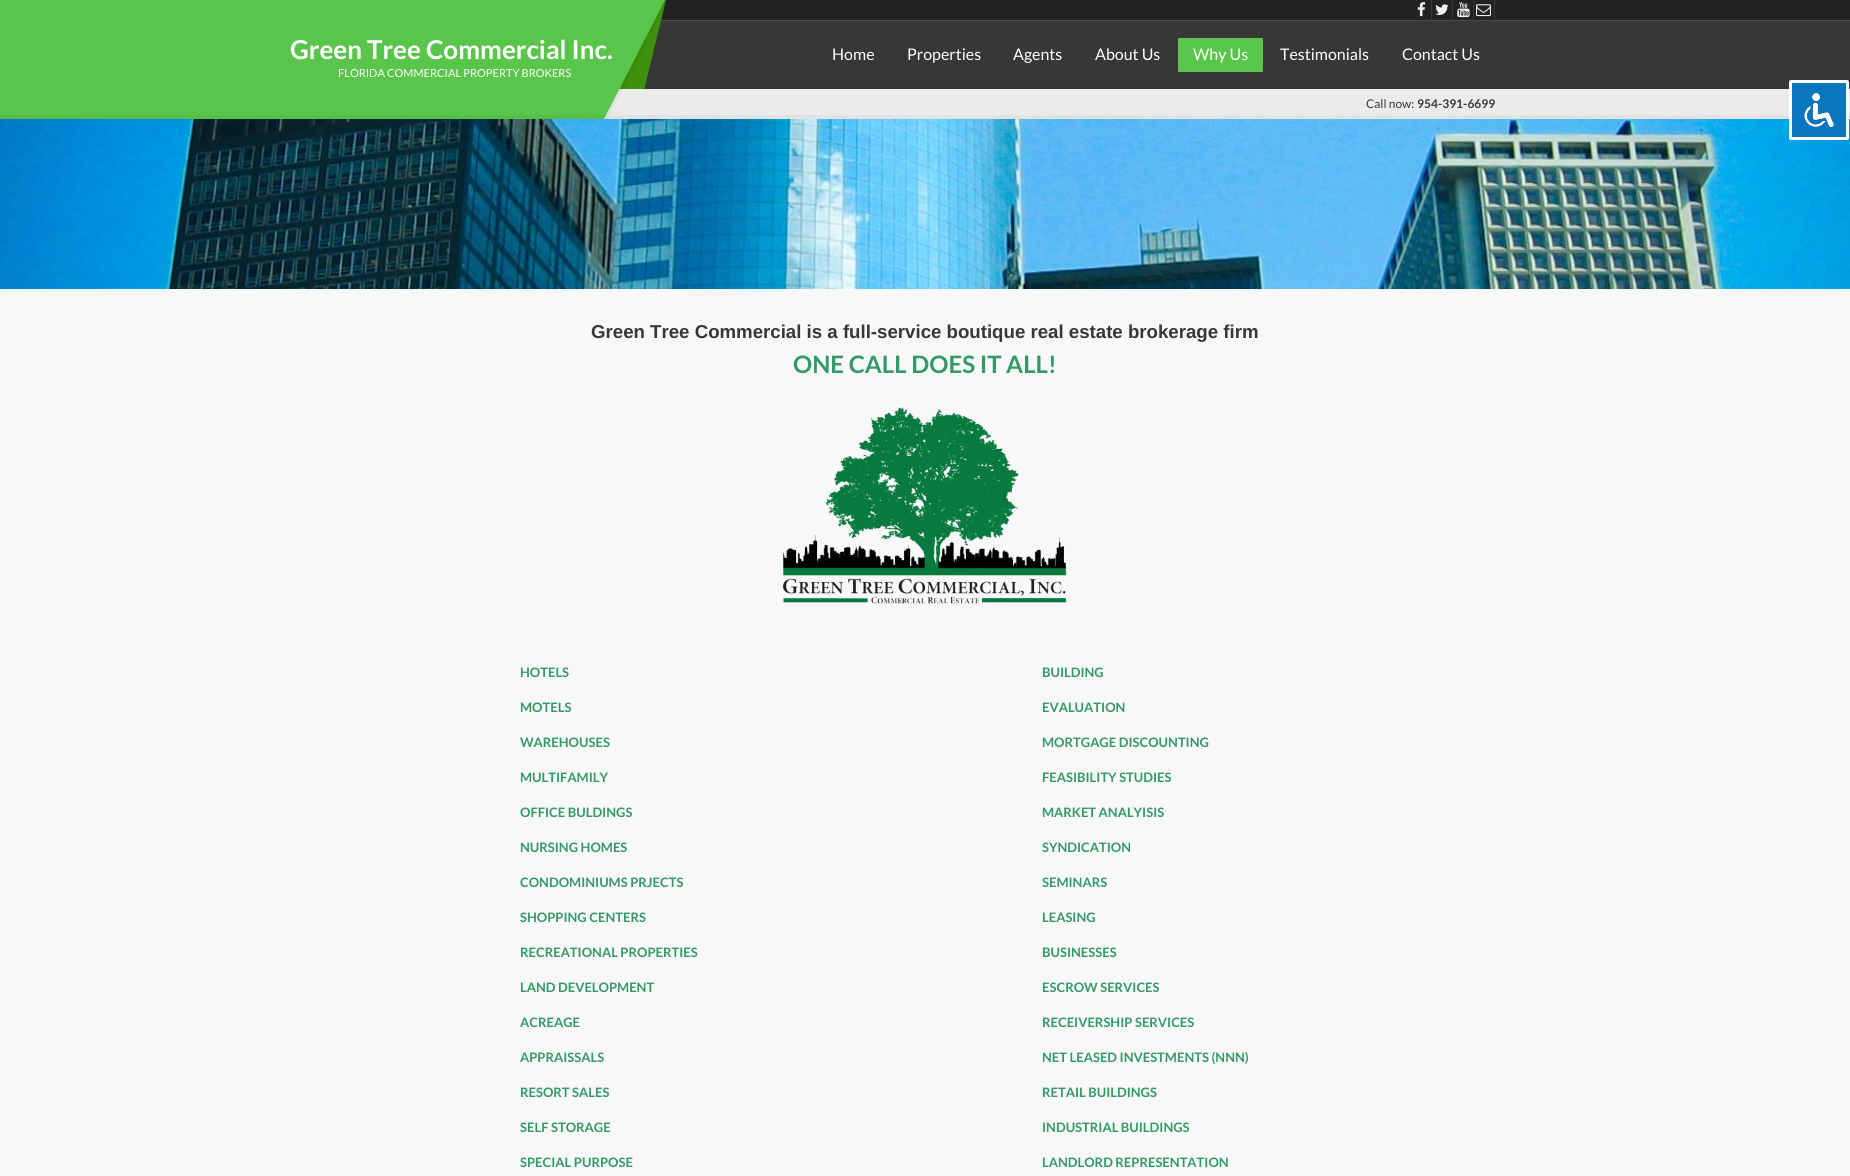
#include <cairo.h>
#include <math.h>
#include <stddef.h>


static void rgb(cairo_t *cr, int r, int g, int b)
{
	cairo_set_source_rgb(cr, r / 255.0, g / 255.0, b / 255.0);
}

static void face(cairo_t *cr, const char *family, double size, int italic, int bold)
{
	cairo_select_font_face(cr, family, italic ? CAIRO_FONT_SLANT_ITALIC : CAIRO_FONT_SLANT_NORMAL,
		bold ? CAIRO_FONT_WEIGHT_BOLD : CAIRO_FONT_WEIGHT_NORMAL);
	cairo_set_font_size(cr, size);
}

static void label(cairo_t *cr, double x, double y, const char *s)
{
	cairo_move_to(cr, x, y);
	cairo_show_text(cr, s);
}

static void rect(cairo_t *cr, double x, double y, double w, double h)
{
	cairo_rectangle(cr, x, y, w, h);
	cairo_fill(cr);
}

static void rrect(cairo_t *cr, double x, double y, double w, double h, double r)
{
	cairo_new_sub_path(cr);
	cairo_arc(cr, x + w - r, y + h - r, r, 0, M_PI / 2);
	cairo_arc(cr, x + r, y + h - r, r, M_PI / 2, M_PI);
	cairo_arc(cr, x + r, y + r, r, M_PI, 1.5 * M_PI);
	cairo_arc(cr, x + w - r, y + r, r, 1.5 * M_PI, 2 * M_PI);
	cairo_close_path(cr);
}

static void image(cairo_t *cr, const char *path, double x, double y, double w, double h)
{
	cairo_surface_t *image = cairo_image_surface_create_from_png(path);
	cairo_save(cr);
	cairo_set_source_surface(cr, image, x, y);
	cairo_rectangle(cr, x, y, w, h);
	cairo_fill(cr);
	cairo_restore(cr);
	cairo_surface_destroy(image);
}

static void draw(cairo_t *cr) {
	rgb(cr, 248, 248, 248);
	cairo_paint(cr);
	rgb(cr, 33, 34, 35);
	rect(cr, 661, 0, 1189, 20);
	rgb(cr, 55, 55, 55);
	rect(cr, 644, 21, 1206, 68);
	rgb(cr, 75, 75, 75);
	rect(cr, 660, 20, 1190, 1);
	rgb(cr, 61, 145, 12);
	cairo_new_path(cr);
	cairo_move_to(cr, -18, 0);
	cairo_line_to(cr, 666, 0);
	cairo_line_to(cr, 637, 119);
	cairo_line_to(cr, -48, 119);
	cairo_close_path(cr);
	cairo_fill(cr);
	rgb(cr, 235, 235, 235);
	rect(cr, 606, 89, 1244, 26);
	rgb(cr, 226, 226, 226);
	rect(cr, 604, 115, 1246, 4);
	cairo_set_source_rgba(cr, 0, 0, 0, 0.05);
	cairo_new_path(cr);
	cairo_move_to(cr, 604, 119);
	cairo_line_to(cr, 607, 119);
	cairo_line_to(cr, 668, 0);
	cairo_line_to(cr, 665, 0);
	cairo_close_path(cr);
	cairo_fill(cr);
	rgb(cr, 89, 197, 75);
	cairo_new_path(cr);
	cairo_move_to(cr, -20, 0);
	cairo_line_to(cr, 665, 0);
	cairo_line_to(cr, 604, 119);
	cairo_line_to(cr, -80, 119);
	cairo_close_path(cr);
	cairo_fill(cr);
	cairo_set_source_rgba(cr, 0, 0, 0, 0.04);
	cairo_new_path(cr);
	cairo_move_to(cr, -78, 115);
	cairo_line_to(cr, 606, 115);
	cairo_line_to(cr, 604, 119);
	cairo_line_to(cr, -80, 119);
	cairo_close_path(cr);
	cairo_fill(cr);
	rgb(cr, 57, 57, 58);
	rect(cr, 1431, 0, 1, 20);
	image(cr, "image0.png", 1417, 2, 9, 15);
	rect(cr, 1452, 0, 1, 20);
	image(cr, "image1.png", 1435, 4, 14, 11);
	rect(cr, 1473, 0, 1, 20);
	image(cr, "image2.png", 1457, 2, 13, 16);
	rect(cr, 1494, 0, 1, 20);
	image(cr, "image3.png", 1476, 4, 15, 13);
	face(cr, "Lato", 26, 0, 1);
	rgb(cr, 255, 255, 255);
	label(cr, 290, 59, "Green Tree Commercial Inc.");
	face(cr, "Lato", 11, 0, 0);
	label(cr, 338, 77, "FLORIDA COMMERCIAL PROPERTY BROKERS");
	face(cr, "Lato", 16, 0, 0);
	label(cr, 832, 60, "Home");
	label(cr, 907, 60, "Properties");
	label(cr, 1013, 60, "Agents");
	label(cr, 1095, 60, "About Us");
	rgb(cr, 89, 197, 75);
	rrect(cr, 1178, 38, 85, 34, 1);
	cairo_fill(cr);
	rgb(cr, 255, 255, 255);
	label(cr, 1193, 60, "Why Us");
	label(cr, 1280, 60, "Testimonials");
	label(cr, 1402, 60, "Contact Us");
	face(cr, "Lato", 12, 0, 0);
	rgb(cr, 55, 55, 55);
	label(cr, 1366, 108, "Call now:");
	face(cr, "Lato", 12, 0, 1);
	label(cr, 1417, 108, "954-391-6699");
	image(cr, "image4.png", 0, 119, 1850, 170);
	face(cr, "Liberation Sans", 18.65, 0, 1);
	label(cr, 591, 338, "Green Tree Commercial is a full-service boutique real estate brokerage firm");
	face(cr, "Lato", 24, 0, 1);
	rgb(cr, 51, 153, 102);
	label(cr, 793, 373, "ONE CALL DOES IT ALL!");
	image(cr, "image5.png", 782, 407, 285, 197);
	face(cr, "Lato", 13, 0, 1);
	label(cr, 520, 677, "HOTELS");
	label(cr, 520, 712, "MOTELS");
	label(cr, 520, 747, "WAREHOUSES");
	label(cr, 520, 782, "MULTIFAMILY");
	label(cr, 520, 817, "OFFICE BULDINGS");
	label(cr, 520, 852, "NURSING HOMES");
	label(cr, 520, 887, "CONDOMINIUMS PRJECTS");
	label(cr, 520, 922, "SHOPPING CENTERS");
	label(cr, 520, 957, "RECREATIONAL PROPERTIES");
	label(cr, 520, 992, "LAND DEVELOPMENT");
	label(cr, 520, 1027, "ACREAGE");
	label(cr, 520, 1062, "APPRAISSALS");
	label(cr, 520, 1097, "RESORT SALES");
	label(cr, 520, 1132, "SELF STORAGE");
	label(cr, 520, 1167, "SPECIAL PURPOSE");
	label(cr, 1042, 677, "BUILDING");
	label(cr, 1042, 712, "EVALUATION");
	label(cr, 1042, 747, "MORTGAGE DISCOUNTING");
	label(cr, 1042, 782, "FEASIBILITY STUDIES");
	label(cr, 1042, 817, "MARKET ANALYISIS");
	label(cr, 1042, 852, "SYNDICATION");
	label(cr, 1042, 887, "SEMINARS");
	label(cr, 1042, 922, "LEASING");
	label(cr, 1042, 957, "BUSINESSES");
	label(cr, 1042, 992, "ESCROW SERVICES");
	label(cr, 1042, 1027, "RECEIVERSHIP SERVICES");
	label(cr, 1042, 1062, "NET LEASED INVESTMENTS (NNN)");
	label(cr, 1042, 1097, "RETAIL BUILDINGS");
	label(cr, 1042, 1132, "INDUSTRIAL BUILDINGS");
	label(cr, 1042, 1167, "LANDLORD REPRESENTATION");
	rgb(cr, 10, 118, 190);
	rrect(cr, 1790.5, 81.5, 57, 57, 0.5);
	cairo_fill_preserve(cr);
	rgb(cr, 255, 255, 255);
	cairo_set_line_width(cr, 3);
	cairo_stroke(cr);
	image(cr, "image6.png", 1804, 93, 30, 34);
}

int main(void) {
	cairo_surface_t *surface = cairo_image_surface_create(CAIRO_FORMAT_RGB24, 1850, 1176);
	cairo_t *cr = cairo_create(surface);
	cairo_font_options_t *options = cairo_font_options_create();
	cairo_font_options_set_hint_metrics(options, CAIRO_HINT_METRICS_OFF);
	cairo_font_options_set_hint_style(options, CAIRO_HINT_STYLE_NONE);
	cairo_set_font_options(cr, options);
	cairo_set_miter_limit(cr, 4);
	draw(cr);
	cairo_surface_write_to_png(surface, "render.png");
	cairo_font_options_destroy(options);
	cairo_destroy(cr);
	cairo_surface_destroy(surface);
	return 0;
}
